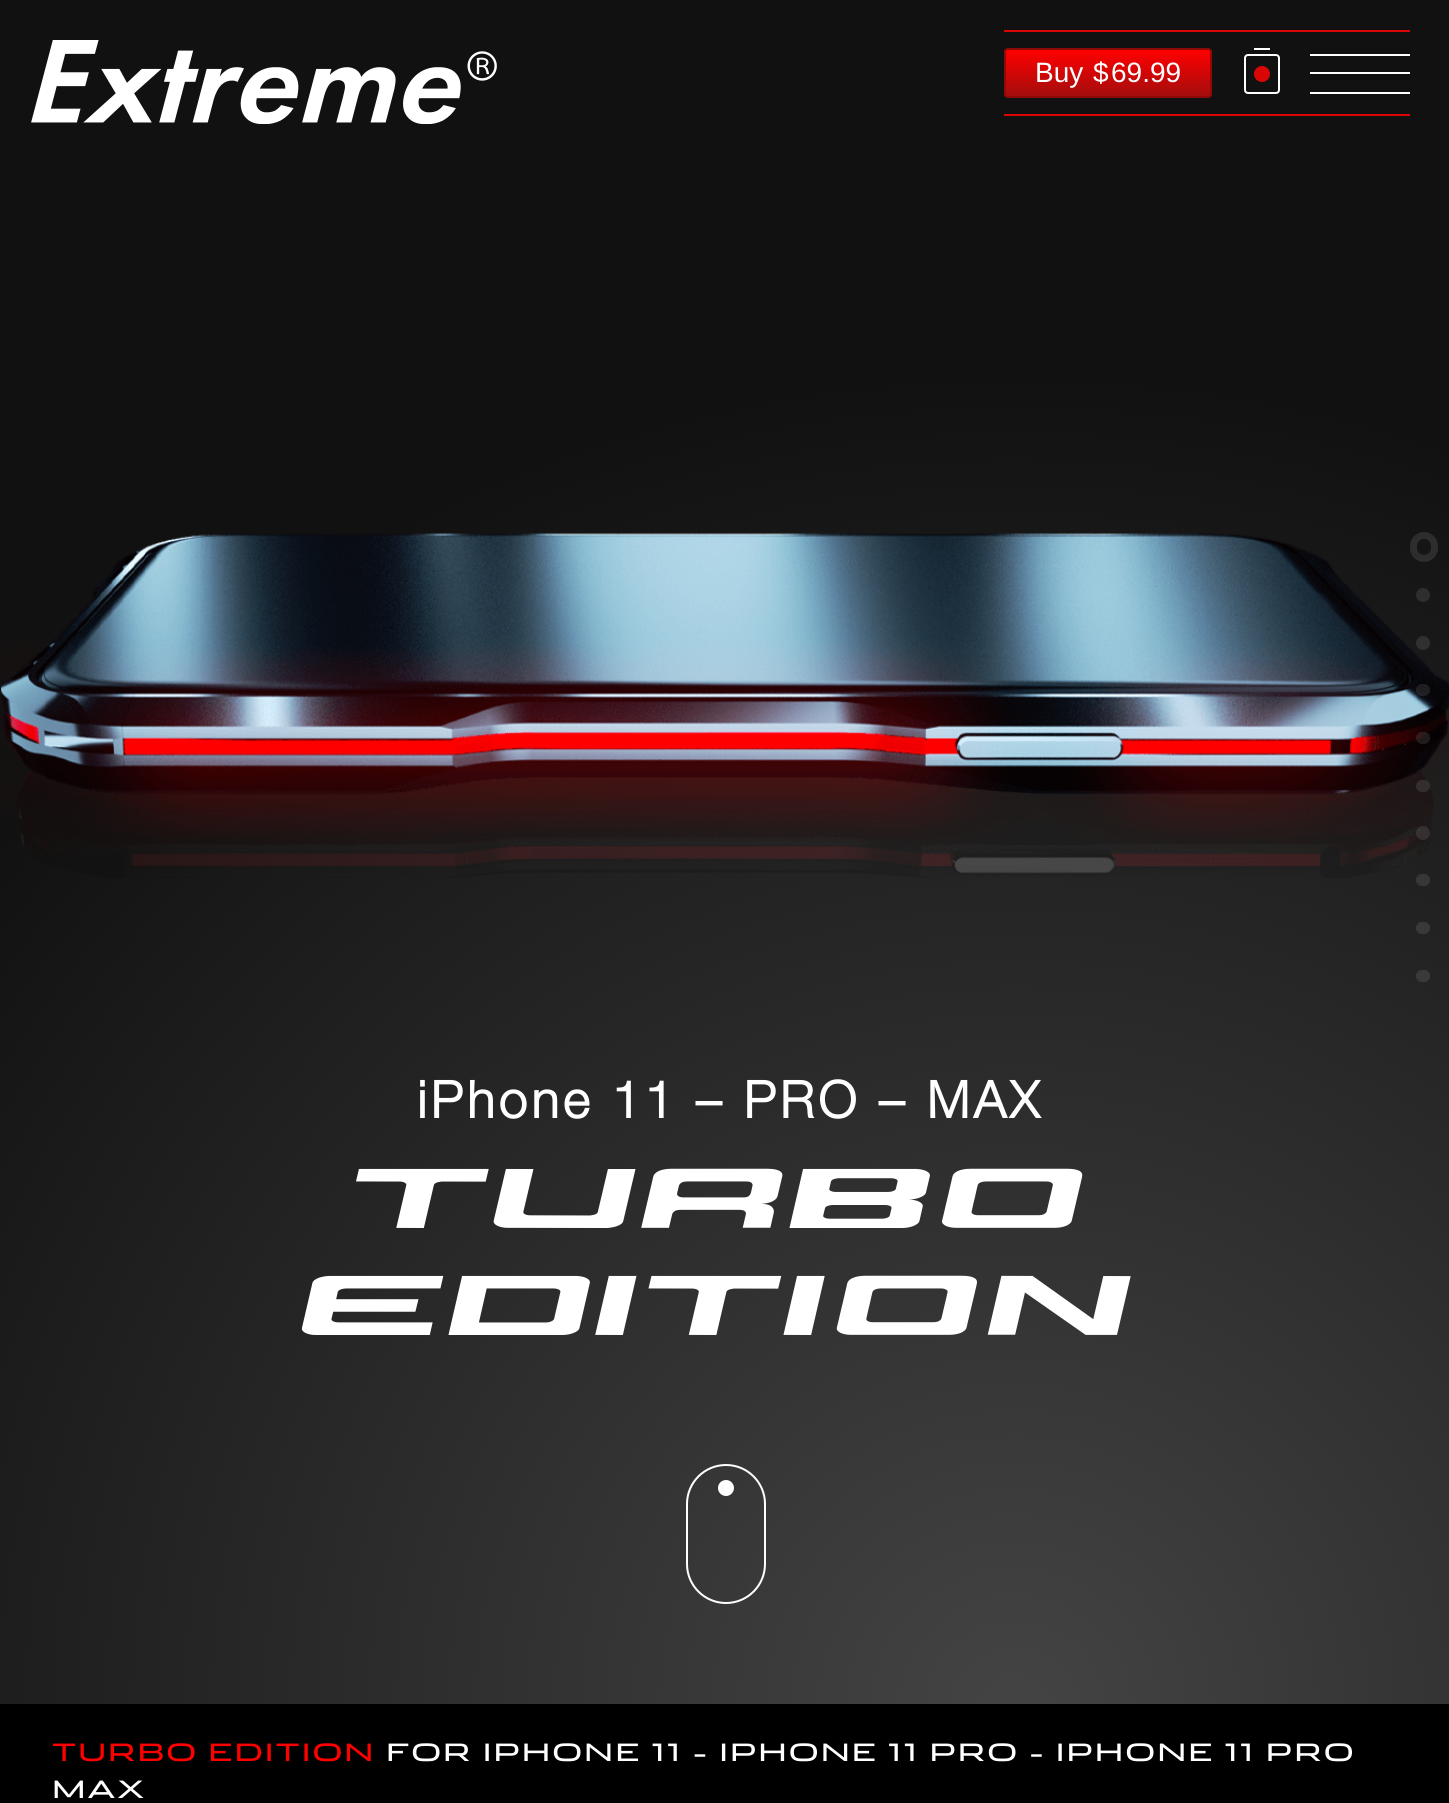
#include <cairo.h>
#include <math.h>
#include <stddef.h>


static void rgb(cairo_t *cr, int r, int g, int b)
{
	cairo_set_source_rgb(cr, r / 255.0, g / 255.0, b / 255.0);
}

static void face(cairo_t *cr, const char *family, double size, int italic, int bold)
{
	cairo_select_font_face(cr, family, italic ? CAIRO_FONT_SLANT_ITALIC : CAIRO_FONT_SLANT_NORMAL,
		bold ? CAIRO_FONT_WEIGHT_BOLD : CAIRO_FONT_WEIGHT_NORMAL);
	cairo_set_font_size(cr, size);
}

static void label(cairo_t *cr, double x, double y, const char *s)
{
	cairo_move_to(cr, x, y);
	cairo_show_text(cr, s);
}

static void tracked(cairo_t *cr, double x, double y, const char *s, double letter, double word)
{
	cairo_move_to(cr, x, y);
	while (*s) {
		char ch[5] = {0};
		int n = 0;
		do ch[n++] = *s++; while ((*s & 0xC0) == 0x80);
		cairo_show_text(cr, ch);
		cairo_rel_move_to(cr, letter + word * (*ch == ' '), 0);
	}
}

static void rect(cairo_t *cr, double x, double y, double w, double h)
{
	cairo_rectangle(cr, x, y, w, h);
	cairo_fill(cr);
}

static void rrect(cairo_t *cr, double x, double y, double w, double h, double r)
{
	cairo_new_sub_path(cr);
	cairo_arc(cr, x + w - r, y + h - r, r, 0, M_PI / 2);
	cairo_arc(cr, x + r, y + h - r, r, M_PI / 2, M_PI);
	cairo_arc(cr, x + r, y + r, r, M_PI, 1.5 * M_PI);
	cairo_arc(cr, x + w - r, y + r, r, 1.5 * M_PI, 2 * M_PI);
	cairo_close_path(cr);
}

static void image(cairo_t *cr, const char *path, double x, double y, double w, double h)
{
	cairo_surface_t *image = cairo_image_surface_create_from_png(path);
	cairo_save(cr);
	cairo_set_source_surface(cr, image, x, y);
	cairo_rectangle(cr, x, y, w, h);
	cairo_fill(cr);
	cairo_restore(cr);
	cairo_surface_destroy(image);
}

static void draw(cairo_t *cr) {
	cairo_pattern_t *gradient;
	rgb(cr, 255, 255, 255);
	cairo_paint(cr);
	image(cr, "image1.png", 0, 0, 1449, 1704);
	image(cr, "image0.png", 31, 40, 466, 84);
	rgb(cr, 218, 5, 5);
	rect(cr, 1004, 30, 406, 2);
	rect(cr, 1004, 114, 406, 2);
	cairo_save(cr);
	rrect(cr, 1004, 48, 208, 50, 4);
	cairo_clip(cr);
	gradient = cairo_pattern_create_linear(1108, 50, 1108, 96);
	cairo_pattern_add_color_stop_rgba(gradient, 0, 1, 0, 0, 1);
	cairo_pattern_add_color_stop_rgba(gradient, 1, 0.647, 0.051, 0.051, 1);
	cairo_set_source(cr, gradient);
	cairo_pattern_destroy(gradient);
	rect(cr, 1004, 50, 208, 46);
	cairo_restore(cr);
	rrect(cr, 1005, 49, 206, 48, 3);
	rgb(cr, 144, 9, 9);
	cairo_stroke(cr);
	face(cr, "Liberation Sans", 28, 0, 0);
	rgb(cr, 255, 255, 255);
	label(cr, 1035, 82, "Buy");
	label(cr, 1093, 82, "$");
	label(cr, 1111, 82, "69.99");
	rrect(cr, 1245, 55, 34, 38, 3);
	cairo_stroke(cr);
	rect(cr, 1254, 48, 16, 2);
	rgb(cr, 218, 5, 5);
	cairo_arc(cr, 1262, 74, 8, 0, 2 * M_PI);
	cairo_fill(cr);
	rgb(cr, 255, 255, 255);
	rect(cr, 1310, 54, 100, 2);
	rect(cr, 1310, 92, 100, 2);
	rect(cr, 1310, 72, 100, 2);
	image(cr, "image2.png", 1, 533, 1448, 345);
	rrect(cr, 1413.5, 535.5, 21, 23, 10.5);
	rgb(cr, 45, 45, 45);
	cairo_set_line_width(cr, 7);
	cairo_stroke(cr);
	rgb(cr, 46, 46, 46);
	cairo_arc(cr, 1423, 595, 7, 0, 2 * M_PI);
	cairo_fill(cr);
	rgb(cr, 48, 48, 48);
	cairo_arc(cr, 1423, 643, 7, 0, 2 * M_PI);
	cairo_fill(cr);
	cairo_set_source_rgba(cr, 1, 1, 1, 0.1);
	rrect(cr, 1416, 684, 14, 12, 6);
	cairo_fill(cr);
	rrect(cr, 1416, 732, 14, 12, 6);
	cairo_fill(cr);
	rrect(cr, 1416, 780, 14, 12, 6);
	cairo_fill(cr);
	cairo_arc(cr, 1423, 833, 7, 0, 2 * M_PI);
	cairo_fill(cr);
	rgb(cr, 55, 55, 55);
	rrect(cr, 1416, 874, 14, 12, 6);
	cairo_fill(cr);
	rgb(cr, 57, 57, 57);
	rrect(cr, 1416, 922, 14, 12, 6);
	cairo_fill(cr);
	rgb(cr, 58, 58, 58);
	rrect(cr, 1416, 970, 14, 12, 6);
	cairo_fill(cr);
	face(cr, "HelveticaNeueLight", 51.25, 0, 1);
	rgb(cr, 255, 255, 255);
	tracked(cr, 417, 1118, "iPhone 11 – PRO – MAX", 4.1, 0);
	face(cr, "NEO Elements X", 89.5, 0, 0);
	tracked(cr, 356, 1228, "TURBO", 9, 0);
	tracked(cr, 306, 1335, "EDITION", 9, 0);
	rrect(cr, 687, 1465, 78, 138, 39);
	cairo_set_line_width(cr, 2);
	cairo_stroke(cr);
	cairo_arc(cr, 726, 1488, 8, 0, 2 * M_PI);
	cairo_fill(cr);
	rgb(cr, 0, 0, 0);
	rect(cr, 0, 1704, 1449, 99);
	face(cr, "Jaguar", 24, 0, 0);
	rgb(cr, 255, 0, 0);
	tracked(cr, 52, 1761, "TURBO EDITION", 2, 0);
	rgb(cr, 255, 255, 255);
	tracked(cr, 386, 1761, "FOR IPHONE 11 – IPHONE 11 PRO – IPHONE 11 PRO", 2, 0);
	tracked(cr, 52, 1798, "MAX", 2, 0);
}

int main(void) {
	cairo_surface_t *surface = cairo_image_surface_create(CAIRO_FORMAT_RGB24, 1449, 1803);
	cairo_t *cr = cairo_create(surface);
	cairo_font_options_t *options = cairo_font_options_create();
	cairo_font_options_set_hint_metrics(options, CAIRO_HINT_METRICS_OFF);
	cairo_font_options_set_hint_style(options, CAIRO_HINT_STYLE_NONE);
	cairo_set_font_options(cr, options);
	cairo_set_miter_limit(cr, 4);
	draw(cr);
	cairo_surface_write_to_png(surface, "render.png");
	cairo_font_options_destroy(options);
	cairo_destroy(cr);
	cairo_surface_destroy(surface);
	return 0;
}
